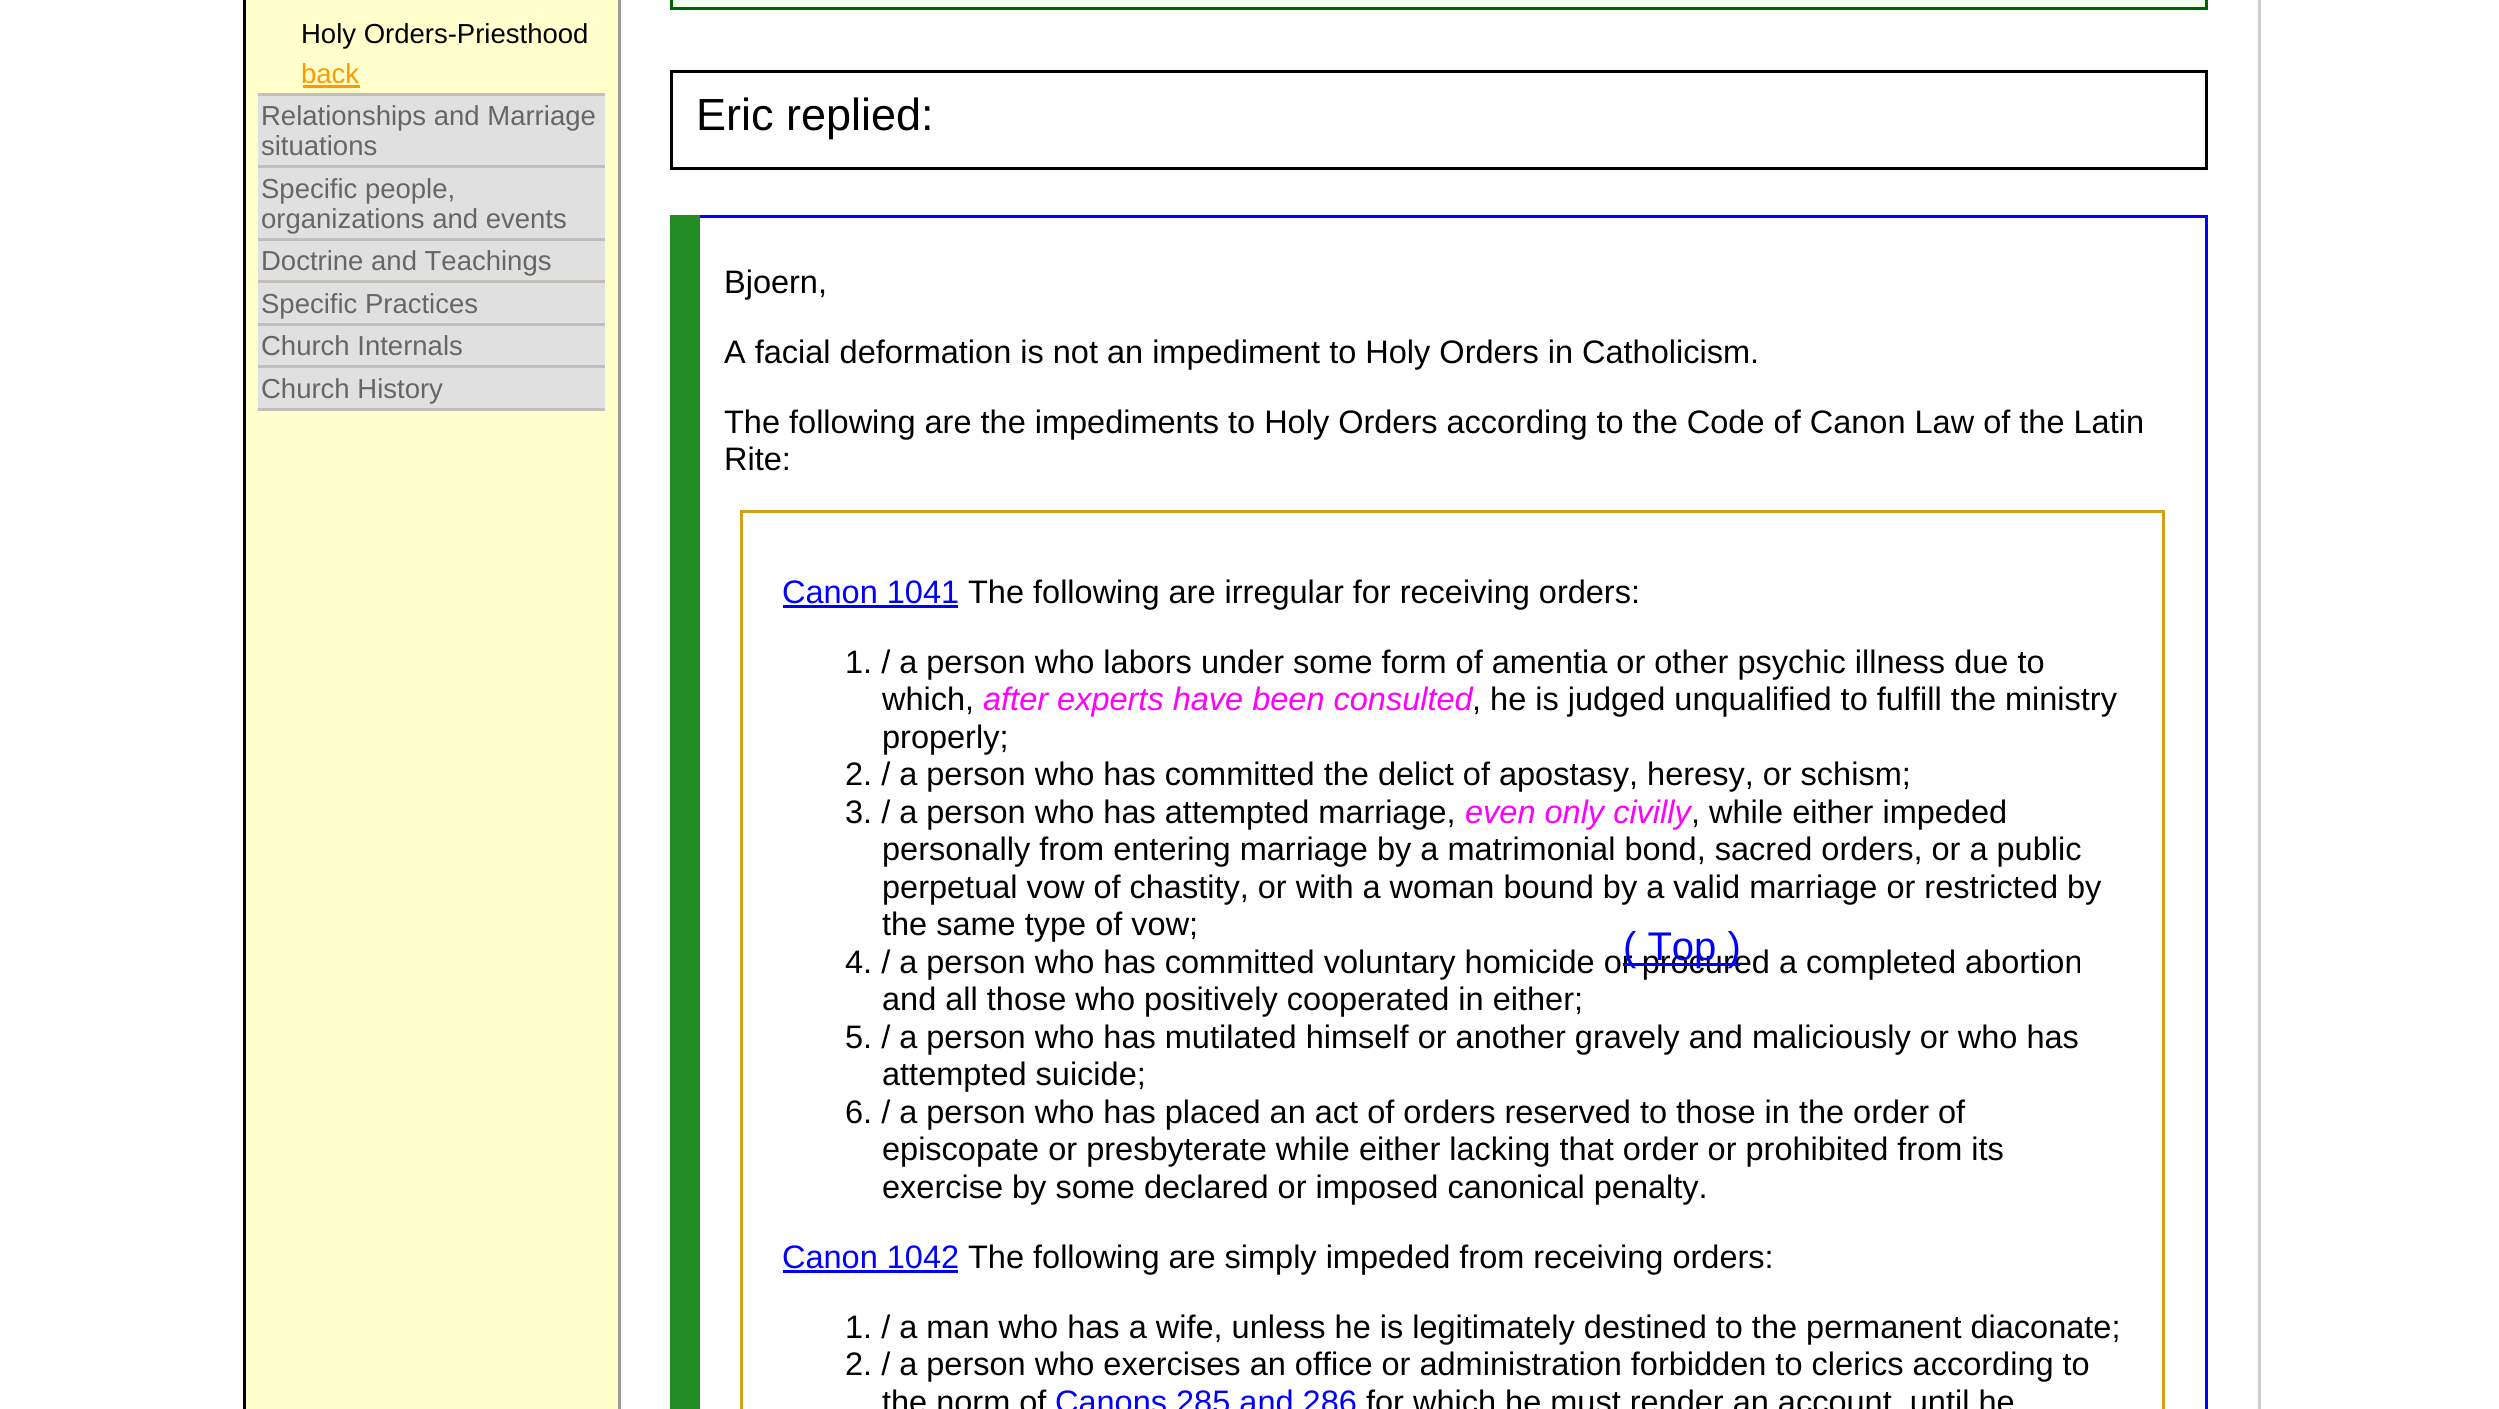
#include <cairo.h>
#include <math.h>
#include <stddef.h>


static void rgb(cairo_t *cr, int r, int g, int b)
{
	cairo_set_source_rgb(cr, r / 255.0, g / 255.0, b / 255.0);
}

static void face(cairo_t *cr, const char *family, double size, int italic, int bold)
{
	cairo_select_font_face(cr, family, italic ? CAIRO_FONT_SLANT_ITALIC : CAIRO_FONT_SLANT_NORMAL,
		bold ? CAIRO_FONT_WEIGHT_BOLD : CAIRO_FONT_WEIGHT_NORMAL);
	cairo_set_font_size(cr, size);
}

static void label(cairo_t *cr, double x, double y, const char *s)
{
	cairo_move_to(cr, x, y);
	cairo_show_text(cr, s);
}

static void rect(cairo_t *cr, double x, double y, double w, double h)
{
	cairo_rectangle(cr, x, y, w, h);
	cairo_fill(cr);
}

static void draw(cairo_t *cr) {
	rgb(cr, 255, 255, 255);
	cairo_paint(cr);
	rgb(cr, 204, 204, 204);
	rect(cr, 2258, 0, 3, 1409);
	rgb(cr, 255, 255, 204);
	rect(cr, 246, 0, 372, 1409);
	rgb(cr, 255, 255, 230);
	rect(cr, 242, 0, 1, 1409);
	rgb(cr, 0, 0, 0);
	rect(cr, 243, 0, 3, 1409);
	rgb(cr, 194, 190, 186);
	rect(cr, 258, 408, 347, 3);
	face(cr, "Liberation Sans", 27.5, 0, 0);
	rgb(cr, 0, 0, 0);
	label(cr, 301, 43, "Holy Orders-Priesthood");
	rgb(cr, 255, 153, 0);
	label(cr, 301, 83, "back");
	rect(cr, 303, 85, 57, 3);
	rgb(cr, 224, 224, 224);
	rect(cr, 258, 96, 347, 69);
	rgb(cr, 194, 190, 186);
	rect(cr, 258, 93, 347, 3);
	rgb(cr, 102, 102, 102);
	label(cr, 261, 125, "Relationships and Marriage");
	label(cr, 261, 155, "situations");
	rgb(cr, 224, 224, 224);
	rect(cr, 258, 168, 347, 70);
	rgb(cr, 194, 190, 186);
	rect(cr, 258, 165, 347, 3);
	rgb(cr, 102, 102, 102);
	label(cr, 261, 198, "Specific people,");
	label(cr, 261, 228, "organizations and events");
	rgb(cr, 224, 224, 224);
	rect(cr, 258, 241, 347, 39);
	rgb(cr, 194, 190, 186);
	rect(cr, 258, 238, 347, 3);
	rgb(cr, 102, 102, 102);
	label(cr, 261, 270, "Doctrine and Teachings");
	rgb(cr, 224, 224, 224);
	rect(cr, 258, 283, 347, 40);
	rgb(cr, 194, 190, 186);
	rect(cr, 258, 280, 347, 3);
	rgb(cr, 102, 102, 102);
	label(cr, 261, 313, "Specific Practices");
	rgb(cr, 224, 224, 224);
	rect(cr, 258, 326, 347, 39);
	rgb(cr, 194, 190, 186);
	rect(cr, 258, 323, 347, 3);
	rgb(cr, 102, 102, 102);
	label(cr, 261, 355, "Church Internals");
	rgb(cr, 224, 224, 224);
	rect(cr, 258, 368, 347, 40);
	rgb(cr, 194, 190, 186);
	rect(cr, 258, 365, 347, 3);
	rgb(cr, 102, 102, 102);
	label(cr, 261, 398, "Church History");
	rgb(cr, 153, 153, 153);
	rect(cr, 618, 0, 3, 1409);
	rgb(cr, 240, 255, 240);
	cairo_rectangle(cr, 671.5, -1.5, 1535, 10);
	cairo_fill_preserve(cr);
	rgb(cr, 0, 100, 0);
	cairo_set_line_width(cr, 3);
	cairo_stroke(cr);
	cairo_rectangle(cr, 671.5, 71.5, 1535, 97);
	rgb(cr, 0, 0, 0);
	cairo_stroke(cr);
	face(cr, "Liberation Sans", 45, 0, 0);
	label(cr, 696, 130, "Eric replied:");
	rgb(cr, 34, 139, 34);
	rect(cr, 670, 215, 30, 1194);
	rgb(cr, 0, 0, 255);
	rect(cr, 700, 215, 1508, 3);
	rect(cr, 2205, 215, 3, 1194);
	face(cr, "Liberation Sans", 32.5, 0, 0);
	rgb(cr, 0, 0, 0);
	label(cr, 724, 293, "Bjoern,");
	label(cr, 724, 363, "A facial deformation is not an impediment to Holy Orders in Catholicism.");
	label(cr, 724, 433, "The following are the impediments to Holy Orders according to the Code of Canon Law of the Latin");
	label(cr, 724, 470, "Rite:");
	cairo_rectangle(cr, 741.5, 511.5, 1422, 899);
	rgb(cr, 212, 160, 23);
	cairo_stroke(cr);
	rgb(cr, 0, 0, 255);
	label(cr, 782, 603, "Canon 1041");
	rect(cr, 783, 605, 175, 3);
	rgb(cr, 0, 0, 0);
	label(cr, 968, 603, "The following are irregular for receiving orders:");
	label(cr, 845, 673, "1. / a person who labors under some form of amentia or other psychic illness due to");
	label(cr, 882, 710, "which,");
	face(cr, "Liberation Sans", 32.5, 1, 0);
	rgb(cr, 255, 0, 255);
	label(cr, 983, 710, "after experts have been consulted");
	face(cr, "Liberation Sans", 32.5, 0, 0);
	rgb(cr, 0, 0, 0);
	label(cr, 1472, 710, ", he is judged unqualified to fulfill the ministry");
	label(cr, 882, 748, "properly;");
	label(cr, 845, 785, "2. / a person who has committed the delict of apostasy, heresy, or schism;");
	label(cr, 845, 823, "3. / a person who has attempted marriage,");
	face(cr, "Liberation Sans", 32.5, 1, 0);
	rgb(cr, 255, 0, 255);
	label(cr, 1465, 823, "even only civilly");
	face(cr, "Liberation Sans", 32.5, 0, 0);
	rgb(cr, 0, 0, 0);
	label(cr, 1691, 823, ", while either impeded");
	label(cr, 882, 860, "personally from entering marriage by a matrimonial bond, sacred orders, or a public");
	label(cr, 882, 898, "perpetual vow of chastity, or with a woman bound by a valid marriage or restricted by");
	label(cr, 882, 935, "the same type of vow;");
	label(cr, 845, 973, "4. / a person who has committed voluntary homicide or procured a completed abortion");
	label(cr, 882, 1010, "and all those who positively cooperated in either;");
	label(cr, 845, 1048, "5. / a person who has mutilated himself or another gravely and maliciously or who has");
	label(cr, 882, 1085, "attempted suicide;");
	label(cr, 845, 1123, "6. / a person who has placed an act of orders reserved to those in the order of");
	label(cr, 882, 1160, "episcopate or presbyterate while either lacking that order or prohibited from its");
	label(cr, 882, 1198, "exercise by some declared or imposed canonical penalty.");
	rgb(cr, 0, 0, 255);
	label(cr, 782, 1268, "Canon 1042");
	rect(cr, 783, 1270, 175, 3);
	rgb(cr, 0, 0, 0);
	label(cr, 968, 1268, "The following are simply impeded from receiving orders:");
	label(cr, 845, 1338, "1. / a man who has a wife, unless he is legitimately destined to the permanent diaconate;");
	label(cr, 845, 1375, "2. / a person who exercises an office or administration forbidden to clerics according to");
	label(cr, 882, 1413, "the norm of");
	rgb(cr, 0, 0, 255);
	label(cr, 1055, 1413, "Canons 285 and 286");
	rgb(cr, 0, 0, 0);
	label(cr, 1366, 1413, "for which he must render an account, until he");
	rgb(cr, 0, 0, 255);
	rect(cr, 1623, 963, 117, 3);
	face(cr, "Liberation Sans", 40, 0, 0);
	label(cr, 1623, 960, "( Top )");
}

int main(void) {
	cairo_surface_t *surface = cairo_image_surface_create(CAIRO_FORMAT_RGB24, 2499, 1409);
	cairo_t *cr = cairo_create(surface);
	cairo_font_options_t *options = cairo_font_options_create();
	cairo_font_options_set_hint_metrics(options, CAIRO_HINT_METRICS_OFF);
	cairo_font_options_set_hint_style(options, CAIRO_HINT_STYLE_NONE);
	cairo_set_font_options(cr, options);
	cairo_set_miter_limit(cr, 4);
	draw(cr);
	cairo_surface_write_to_png(surface, "render.png");
	cairo_font_options_destroy(options);
	cairo_destroy(cr);
	cairo_surface_destroy(surface);
	return 0;
}
